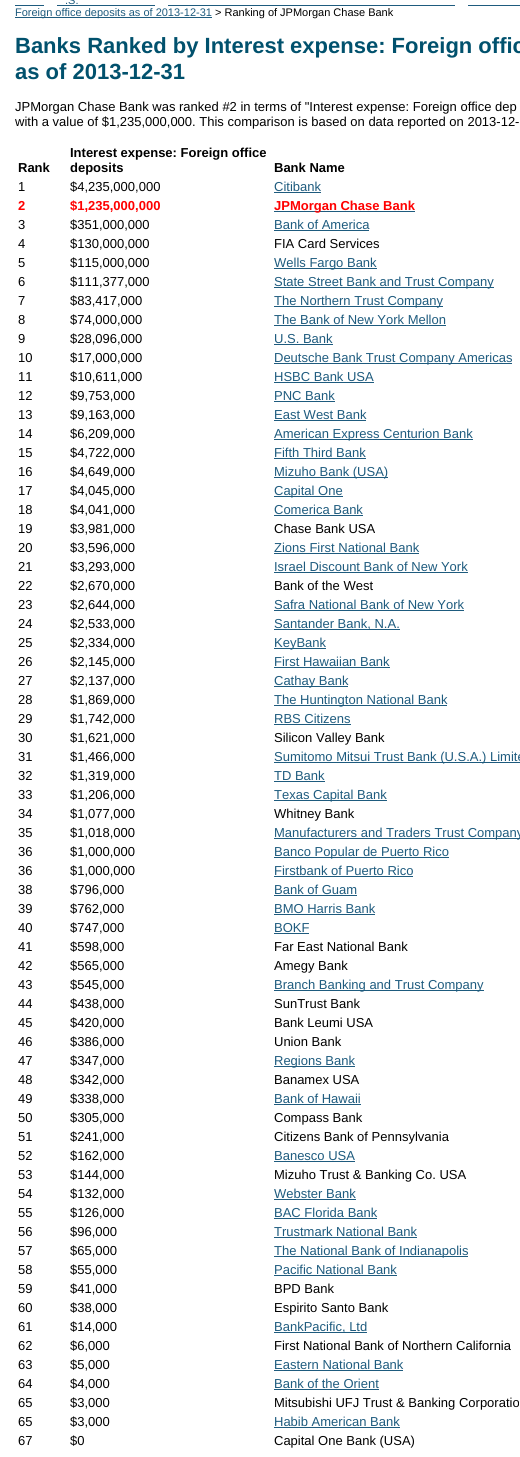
#include <cairo.h>
#include <math.h>
#include <stddef.h>


static void rgb(cairo_t *cr, int r, int g, int b)
{
	cairo_set_source_rgb(cr, r / 255.0, g / 255.0, b / 255.0);
}

static void face(cairo_t *cr, const char *family, double size, int italic, int bold)
{
	cairo_select_font_face(cr, family, italic ? CAIRO_FONT_SLANT_ITALIC : CAIRO_FONT_SLANT_NORMAL,
		bold ? CAIRO_FONT_WEIGHT_BOLD : CAIRO_FONT_WEIGHT_NORMAL);
	cairo_set_font_size(cr, size);
}

static void label(cairo_t *cr, double x, double y, const char *s)
{
	cairo_move_to(cr, x, y);
	cairo_show_text(cr, s);
}

static void rect(cairo_t *cr, double x, double y, double w, double h)
{
	cairo_rectangle(cr, x, y, w, h);
	cairo_fill(cr);
}

static void draw(cairo_t *cr) {
	rgb(cr, 255, 255, 255);
	cairo_paint(cr);
	face(cr, "Liberation Sans", 11, 0, 0);
	rgb(cr, 30, 91, 126);
	label(cr, 65, 4, ".S.");
	rect(cr, 57, 5, 98, 1);
	rect(cr, 15, 5, 29, 1);
	rect(cr, 168, 5, 287, 1);
	rect(cr, 15, 17, 197, 1);
	label(cr, 15, 16, "Foreign office deposits as of 2013-12-31");
	rect(cr, 468, 5, 52, 1);
	rgb(cr, 0, 0, 0);
	label(cr, 215, 16, "> Ranking of JPMorgan Chase Bank");
	face(cr, "Liberation Sans", 22, 0, 1);
	rgb(cr, 1, 81, 109);
	label(cr, 15, 53, "Banks Ranked by Interest expense: Foreign offic");
	label(cr, 15, 79, "as of 2013-12-31");
	face(cr, "Liberation Sans", 13, 0, 0);
	rgb(cr, 0, 0, 0);
	label(cr, 15, 111, "JPMorgan Chase Bank was ranked #2 in terms of \"Interest expense: Foreign office dep");
	label(cr, 15, 126, "with a value of $1,235,000,000. This comparison is based on data reported on 2013-12-");
	face(cr, "Liberation Sans", 13, 0, 1);
	label(cr, 18, 172, "Rank");
	label(cr, 70, 157, "Interest expense: Foreign office");
	label(cr, 70, 172, "deposits");
	label(cr, 274, 172, "Bank Name");
	face(cr, "Liberation Sans", 13, 0, 0);
	label(cr, 18, 191, "1");
	label(cr, 70, 191, "$4,235,000,000");
	rgb(cr, 30, 91, 126);
	label(cr, 274, 191, "Citibank");
	rect(cr, 274, 192, 47, 1);
	face(cr, "Liberation Sans", 13, 0, 1);
	rgb(cr, 255, 0, 0);
	label(cr, 18, 210, "2");
	label(cr, 70, 210, "$1,235,000,000");
	rgb(cr, 30, 91, 126);
	rect(cr, 274, 211, 141, 1);
	rgb(cr, 255, 0, 0);
	label(cr, 274, 210, "JPMorgan Chase Bank");
	face(cr, "Liberation Sans", 13, 0, 0);
	rgb(cr, 0, 0, 0);
	label(cr, 18, 229, "3");
	label(cr, 70, 229, "$351,000,000");
	rgb(cr, 30, 91, 126);
	label(cr, 274, 229, "Bank of America");
	rect(cr, 274, 230, 95, 1);
	rgb(cr, 0, 0, 0);
	label(cr, 18, 248, "4");
	label(cr, 70, 248, "$130,000,000");
	label(cr, 274, 248, "FIA Card Services");
	label(cr, 18, 267, "5");
	label(cr, 70, 267, "$115,000,000");
	rgb(cr, 30, 91, 126);
	rect(cr, 274, 268, 103, 1);
	label(cr, 274, 267, "Wells Fargo Bank");
	rgb(cr, 0, 0, 0);
	label(cr, 18, 286, "6");
	label(cr, 70, 286, "$111,377,000");
	rgb(cr, 30, 91, 126);
	rect(cr, 274, 287, 220, 1);
	label(cr, 274, 286, "State Street Bank and Trust Company");
	rgb(cr, 0, 0, 0);
	label(cr, 18, 305, "7");
	label(cr, 70, 305, "$83,417,000");
	rgb(cr, 30, 91, 126);
	rect(cr, 274, 306, 169, 1);
	label(cr, 274, 305, "The Northern Trust Company");
	rgb(cr, 0, 0, 0);
	label(cr, 18, 324, "8");
	label(cr, 70, 324, "$74,000,000");
	rgb(cr, 30, 91, 126);
	label(cr, 274, 324, "The Bank of New York Mellon");
	rect(cr, 274, 325, 172, 1);
	rgb(cr, 0, 0, 0);
	label(cr, 18, 343, "9");
	label(cr, 70, 343, "$28,096,000");
	rgb(cr, 30, 91, 126);
	label(cr, 274, 343, "U.S. Bank");
	rect(cr, 274, 344, 59, 1);
	rgb(cr, 0, 0, 0);
	label(cr, 18, 362, "10");
	label(cr, 70, 362, "$17,000,000");
	rgb(cr, 30, 91, 126);
	rect(cr, 274, 363, 238, 1);
	label(cr, 274, 362, "Deutsche Bank Trust Company Americas");
	rgb(cr, 0, 0, 0);
	label(cr, 18, 381, "11");
	label(cr, 70, 381, "$10,611,000");
	rgb(cr, 30, 91, 126);
	label(cr, 274, 381, "HSBC Bank USA");
	rect(cr, 274, 382, 100, 1);
	rgb(cr, 0, 0, 0);
	label(cr, 18, 400, "12");
	label(cr, 70, 400, "$9,753,000");
	rgb(cr, 30, 91, 126);
	label(cr, 274, 400, "PNC Bank");
	rect(cr, 274, 401, 61, 1);
	rgb(cr, 0, 0, 0);
	label(cr, 18, 419, "13");
	label(cr, 70, 419, "$9,163,000");
	rgb(cr, 30, 91, 126);
	label(cr, 274, 419, "East West Bank");
	rect(cr, 274, 420, 92, 1);
	rgb(cr, 0, 0, 0);
	label(cr, 18, 438, "14");
	label(cr, 70, 438, "$6,209,000");
	rgb(cr, 30, 91, 126);
	rect(cr, 274, 439, 199, 1);
	label(cr, 274, 438, "American Express Centurion Bank");
	rgb(cr, 0, 0, 0);
	label(cr, 18, 457, "15");
	label(cr, 70, 457, "$4,722,000");
	rgb(cr, 30, 91, 126);
	label(cr, 274, 457, "Fifth Third Bank");
	rect(cr, 274, 458, 92, 1);
	rgb(cr, 0, 0, 0);
	label(cr, 18, 476, "16");
	label(cr, 70, 476, "$4,649,000");
	rgb(cr, 30, 91, 126);
	rect(cr, 274, 477, 114, 1);
	label(cr, 274, 476, "Mizuho Bank (USA)");
	rgb(cr, 0, 0, 0);
	label(cr, 18, 495, "17");
	label(cr, 70, 495, "$4,045,000");
	rgb(cr, 30, 91, 126);
	rect(cr, 274, 496, 69, 1);
	label(cr, 274, 495, "Capital One");
	rgb(cr, 0, 0, 0);
	label(cr, 18, 514, "18");
	label(cr, 70, 514, "$4,041,000");
	rgb(cr, 30, 91, 126);
	label(cr, 274, 514, "Comerica Bank");
	rect(cr, 274, 515, 89, 1);
	rgb(cr, 0, 0, 0);
	label(cr, 18, 533, "19");
	label(cr, 70, 533, "$3,981,000");
	label(cr, 274, 533, "Chase Bank USA");
	label(cr, 18, 552, "20");
	label(cr, 70, 552, "$3,596,000");
	rgb(cr, 30, 91, 126);
	label(cr, 274, 552, "Zions First National Bank");
	rect(cr, 274, 553, 145, 1);
	rgb(cr, 0, 0, 0);
	label(cr, 18, 571, "21");
	label(cr, 70, 571, "$3,293,000");
	rgb(cr, 30, 91, 126);
	label(cr, 274, 571, "Israel Discount Bank of New York");
	rect(cr, 274, 572, 194, 1);
	rgb(cr, 0, 0, 0);
	label(cr, 18, 590, "22");
	label(cr, 70, 590, "$2,670,000");
	label(cr, 274, 590, "Bank of the West");
	label(cr, 18, 609, "23");
	label(cr, 70, 609, "$2,644,000");
	rgb(cr, 30, 91, 126);
	label(cr, 274, 609, "Safra National Bank of New York");
	rect(cr, 274, 610, 190, 1);
	rgb(cr, 0, 0, 0);
	label(cr, 18, 628, "24");
	label(cr, 70, 628, "$2,533,000");
	rgb(cr, 30, 91, 126);
	rect(cr, 274, 629, 126, 1);
	label(cr, 274, 628, "Santander Bank, N.A.");
	rgb(cr, 0, 0, 0);
	label(cr, 18, 647, "25");
	label(cr, 70, 647, "$2,334,000");
	rgb(cr, 30, 91, 126);
	rect(cr, 274, 648, 52, 1);
	label(cr, 274, 647, "KeyBank");
	rgb(cr, 0, 0, 0);
	label(cr, 18, 666, "26");
	label(cr, 70, 666, "$2,145,000");
	rgb(cr, 30, 91, 126);
	label(cr, 274, 666, "First Hawaiian Bank");
	rect(cr, 274, 667, 116, 1);
	rgb(cr, 0, 0, 0);
	label(cr, 18, 685, "27");
	label(cr, 70, 685, "$2,137,000");
	rgb(cr, 30, 91, 126);
	rect(cr, 274, 686, 74, 1);
	label(cr, 274, 685, "Cathay Bank");
	rgb(cr, 0, 0, 0);
	label(cr, 18, 704, "28");
	label(cr, 70, 704, "$1,869,000");
	rgb(cr, 30, 91, 126);
	rect(cr, 274, 705, 173, 1);
	label(cr, 274, 704, "The Huntington National Bank");
	rgb(cr, 0, 0, 0);
	label(cr, 18, 723, "29");
	label(cr, 70, 723, "$1,742,000");
	rgb(cr, 30, 91, 126);
	label(cr, 274, 723, "RBS Citizens");
	rect(cr, 274, 724, 77, 1);
	rgb(cr, 0, 0, 0);
	label(cr, 18, 742, "30");
	label(cr, 70, 742, "$1,621,000");
	label(cr, 274, 742, "Silicon Valley Bank");
	label(cr, 18, 761, "31");
	label(cr, 70, 761, "$1,466,000");
	rgb(cr, 30, 91, 126);
	rect(cr, 274, 762, 246, 1);
	label(cr, 274, 761, "Sumitomo Mitsui Trust Bank (U.S.A.) Limite");
	rgb(cr, 0, 0, 0);
	label(cr, 18, 780, "32");
	label(cr, 70, 780, "$1,319,000");
	rgb(cr, 30, 91, 126);
	label(cr, 274, 780, "TD Bank");
	rect(cr, 274, 781, 51, 1);
	rgb(cr, 0, 0, 0);
	label(cr, 18, 799, "33");
	label(cr, 70, 799, "$1,206,000");
	rgb(cr, 30, 91, 126);
	rect(cr, 274, 800, 113, 1);
	label(cr, 274, 799, "Texas Capital Bank");
	rgb(cr, 0, 0, 0);
	label(cr, 18, 818, "34");
	label(cr, 70, 818, "$1,077,000");
	label(cr, 274, 818, "Whitney Bank");
	label(cr, 18, 837, "35");
	label(cr, 70, 837, "$1,018,000");
	rgb(cr, 30, 91, 126);
	rect(cr, 274, 838, 246, 1);
	label(cr, 274, 837, "Manufacturers and Traders Trust Company");
	rgb(cr, 0, 0, 0);
	label(cr, 18, 856, "36");
	label(cr, 70, 856, "$1,000,000");
	rgb(cr, 30, 91, 126);
	rect(cr, 274, 857, 175, 1);
	label(cr, 274, 856, "Banco Popular de Puerto Rico");
	rgb(cr, 0, 0, 0);
	label(cr, 18, 875, "36");
	label(cr, 70, 875, "$1,000,000");
	rgb(cr, 30, 91, 126);
	label(cr, 274, 875, "Firstbank of Puerto Rico");
	rect(cr, 274, 876, 139, 1);
	rgb(cr, 0, 0, 0);
	label(cr, 18, 894, "38");
	label(cr, 70, 894, "$796,000");
	rgb(cr, 30, 91, 126);
	label(cr, 274, 894, "Bank of Guam");
	rect(cr, 274, 895, 83, 1);
	rgb(cr, 0, 0, 0);
	label(cr, 18, 913, "39");
	label(cr, 70, 913, "$762,000");
	rgb(cr, 30, 91, 126);
	label(cr, 274, 913, "BMO Harris Bank");
	rect(cr, 274, 914, 101, 1);
	rgb(cr, 0, 0, 0);
	label(cr, 18, 932, "40");
	label(cr, 70, 932, "$747,000");
	rgb(cr, 30, 91, 126);
	label(cr, 274, 932, "BOKF");
	rect(cr, 274, 933, 35, 1);
	rgb(cr, 0, 0, 0);
	label(cr, 18, 951, "41");
	label(cr, 70, 951, "$598,000");
	label(cr, 274, 951, "Far East National Bank");
	label(cr, 18, 970, "42");
	label(cr, 70, 970, "$565,000");
	label(cr, 274, 970, "Amegy Bank");
	label(cr, 18, 989, "43");
	label(cr, 70, 989, "$545,000");
	rgb(cr, 30, 91, 126);
	rect(cr, 274, 990, 210, 1);
	label(cr, 274, 989, "Branch Banking and Trust Company");
	rgb(cr, 0, 0, 0);
	label(cr, 18, 1008, "44");
	label(cr, 70, 1008, "$438,000");
	label(cr, 274, 1008, "SunTrust Bank");
	label(cr, 18, 1027, "45");
	label(cr, 70, 1027, "$420,000");
	label(cr, 274, 1027, "Bank Leumi USA");
	label(cr, 18, 1046, "46");
	label(cr, 70, 1046, "$386,000");
	label(cr, 274, 1046, "Union Bank");
	label(cr, 18, 1065, "47");
	label(cr, 70, 1065, "$347,000");
	rgb(cr, 30, 91, 126);
	rect(cr, 274, 1066, 81, 1);
	label(cr, 274, 1065, "Regions Bank");
	rgb(cr, 0, 0, 0);
	label(cr, 18, 1084, "48");
	label(cr, 70, 1084, "$342,000");
	label(cr, 274, 1084, "Banamex USA");
	label(cr, 18, 1103, "49");
	label(cr, 70, 1103, "$338,000");
	rgb(cr, 30, 91, 126);
	label(cr, 274, 1103, "Bank of Hawaii");
	rect(cr, 274, 1104, 87, 1);
	rgb(cr, 0, 0, 0);
	label(cr, 18, 1122, "50");
	label(cr, 70, 1122, "$305,000");
	label(cr, 274, 1122, "Compass Bank");
	label(cr, 18, 1141, "51");
	label(cr, 70, 1141, "$241,000");
	label(cr, 274, 1141, "Citizens Bank of Pennsylvania");
	label(cr, 18, 1160, "52");
	label(cr, 70, 1160, "$162,000");
	rgb(cr, 30, 91, 126);
	label(cr, 274, 1160, "Banesco USA");
	rect(cr, 274, 1161, 81, 1);
	rgb(cr, 0, 0, 0);
	label(cr, 18, 1179, "53");
	label(cr, 70, 1179, "$144,000");
	label(cr, 274, 1179, "Mizuho Trust & Banking Co. USA");
	label(cr, 18, 1198, "54");
	label(cr, 70, 1198, "$132,000");
	rgb(cr, 30, 91, 126);
	label(cr, 274, 1198, "Webster Bank");
	rect(cr, 274, 1199, 82, 1);
	rgb(cr, 0, 0, 0);
	label(cr, 18, 1217, "55");
	label(cr, 70, 1217, "$126,000");
	rgb(cr, 30, 91, 126);
	label(cr, 274, 1217, "BAC Florida Bank");
	rect(cr, 274, 1218, 103, 1);
	rgb(cr, 0, 0, 0);
	label(cr, 18, 1236, "56");
	label(cr, 70, 1236, "$96,000");
	rgb(cr, 30, 91, 126);
	label(cr, 274, 1236, "Trustmark National Bank");
	rect(cr, 274, 1237, 143, 1);
	rgb(cr, 0, 0, 0);
	label(cr, 18, 1255, "57");
	label(cr, 70, 1255, "$65,000");
	rgb(cr, 30, 91, 126);
	rect(cr, 274, 1256, 194, 1);
	label(cr, 274, 1255, "The National Bank of Indianapolis");
	rgb(cr, 0, 0, 0);
	label(cr, 18, 1274, "58");
	label(cr, 70, 1274, "$55,000");
	rgb(cr, 30, 91, 126);
	label(cr, 274, 1274, "Pacific National Bank");
	rect(cr, 274, 1275, 123, 1);
	rgb(cr, 0, 0, 0);
	label(cr, 18, 1293, "59");
	label(cr, 70, 1293, "$41,000");
	label(cr, 274, 1293, "BPD Bank");
	label(cr, 18, 1312, "60");
	label(cr, 70, 1312, "$38,000");
	label(cr, 274, 1312, "Espirito Santo Bank");
	label(cr, 18, 1331, "61");
	label(cr, 70, 1331, "$14,000");
	rgb(cr, 30, 91, 126);
	rect(cr, 274, 1332, 93, 1);
	label(cr, 274, 1331, "BankPacific, Ltd");
	rgb(cr, 0, 0, 0);
	label(cr, 18, 1350, "62");
	label(cr, 70, 1350, "$6,000");
	label(cr, 274, 1350, "First National Bank of Northern California");
	label(cr, 18, 1369, "63");
	label(cr, 70, 1369, "$5,000");
	rgb(cr, 30, 91, 126);
	label(cr, 274, 1369, "Eastern National Bank");
	rect(cr, 274, 1370, 129, 1);
	rgb(cr, 0, 0, 0);
	label(cr, 18, 1388, "64");
	label(cr, 70, 1388, "$4,000");
	rgb(cr, 30, 91, 126);
	label(cr, 274, 1388, "Bank of the Orient");
	rect(cr, 274, 1389, 105, 1);
	rgb(cr, 0, 0, 0);
	label(cr, 18, 1407, "65");
	label(cr, 70, 1407, "$3,000");
	label(cr, 274, 1407, "Mitsubishi UFJ Trust & Banking Corporatio");
	label(cr, 18, 1426, "65");
	label(cr, 70, 1426, "$3,000");
	rgb(cr, 30, 91, 126);
	label(cr, 274, 1426, "Habib American Bank");
	rect(cr, 274, 1427, 126, 1);
	rgb(cr, 0, 0, 0);
	label(cr, 18, 1445, "67");
	label(cr, 70, 1445, "$0");
	label(cr, 274, 1445, "Capital One Bank (USA)");
}

int main(void) {
	cairo_surface_t *surface = cairo_image_surface_create(CAIRO_FORMAT_RGB24, 520, 1457);
	cairo_t *cr = cairo_create(surface);
	cairo_font_options_t *options = cairo_font_options_create();
	cairo_font_options_set_hint_metrics(options, CAIRO_HINT_METRICS_OFF);
	cairo_font_options_set_hint_style(options, CAIRO_HINT_STYLE_NONE);
	cairo_set_font_options(cr, options);
	cairo_set_miter_limit(cr, 4);
	draw(cr);
	cairo_surface_write_to_png(surface, "render.png");
	cairo_font_options_destroy(options);
	cairo_destroy(cr);
	cairo_surface_destroy(surface);
	return 0;
}
